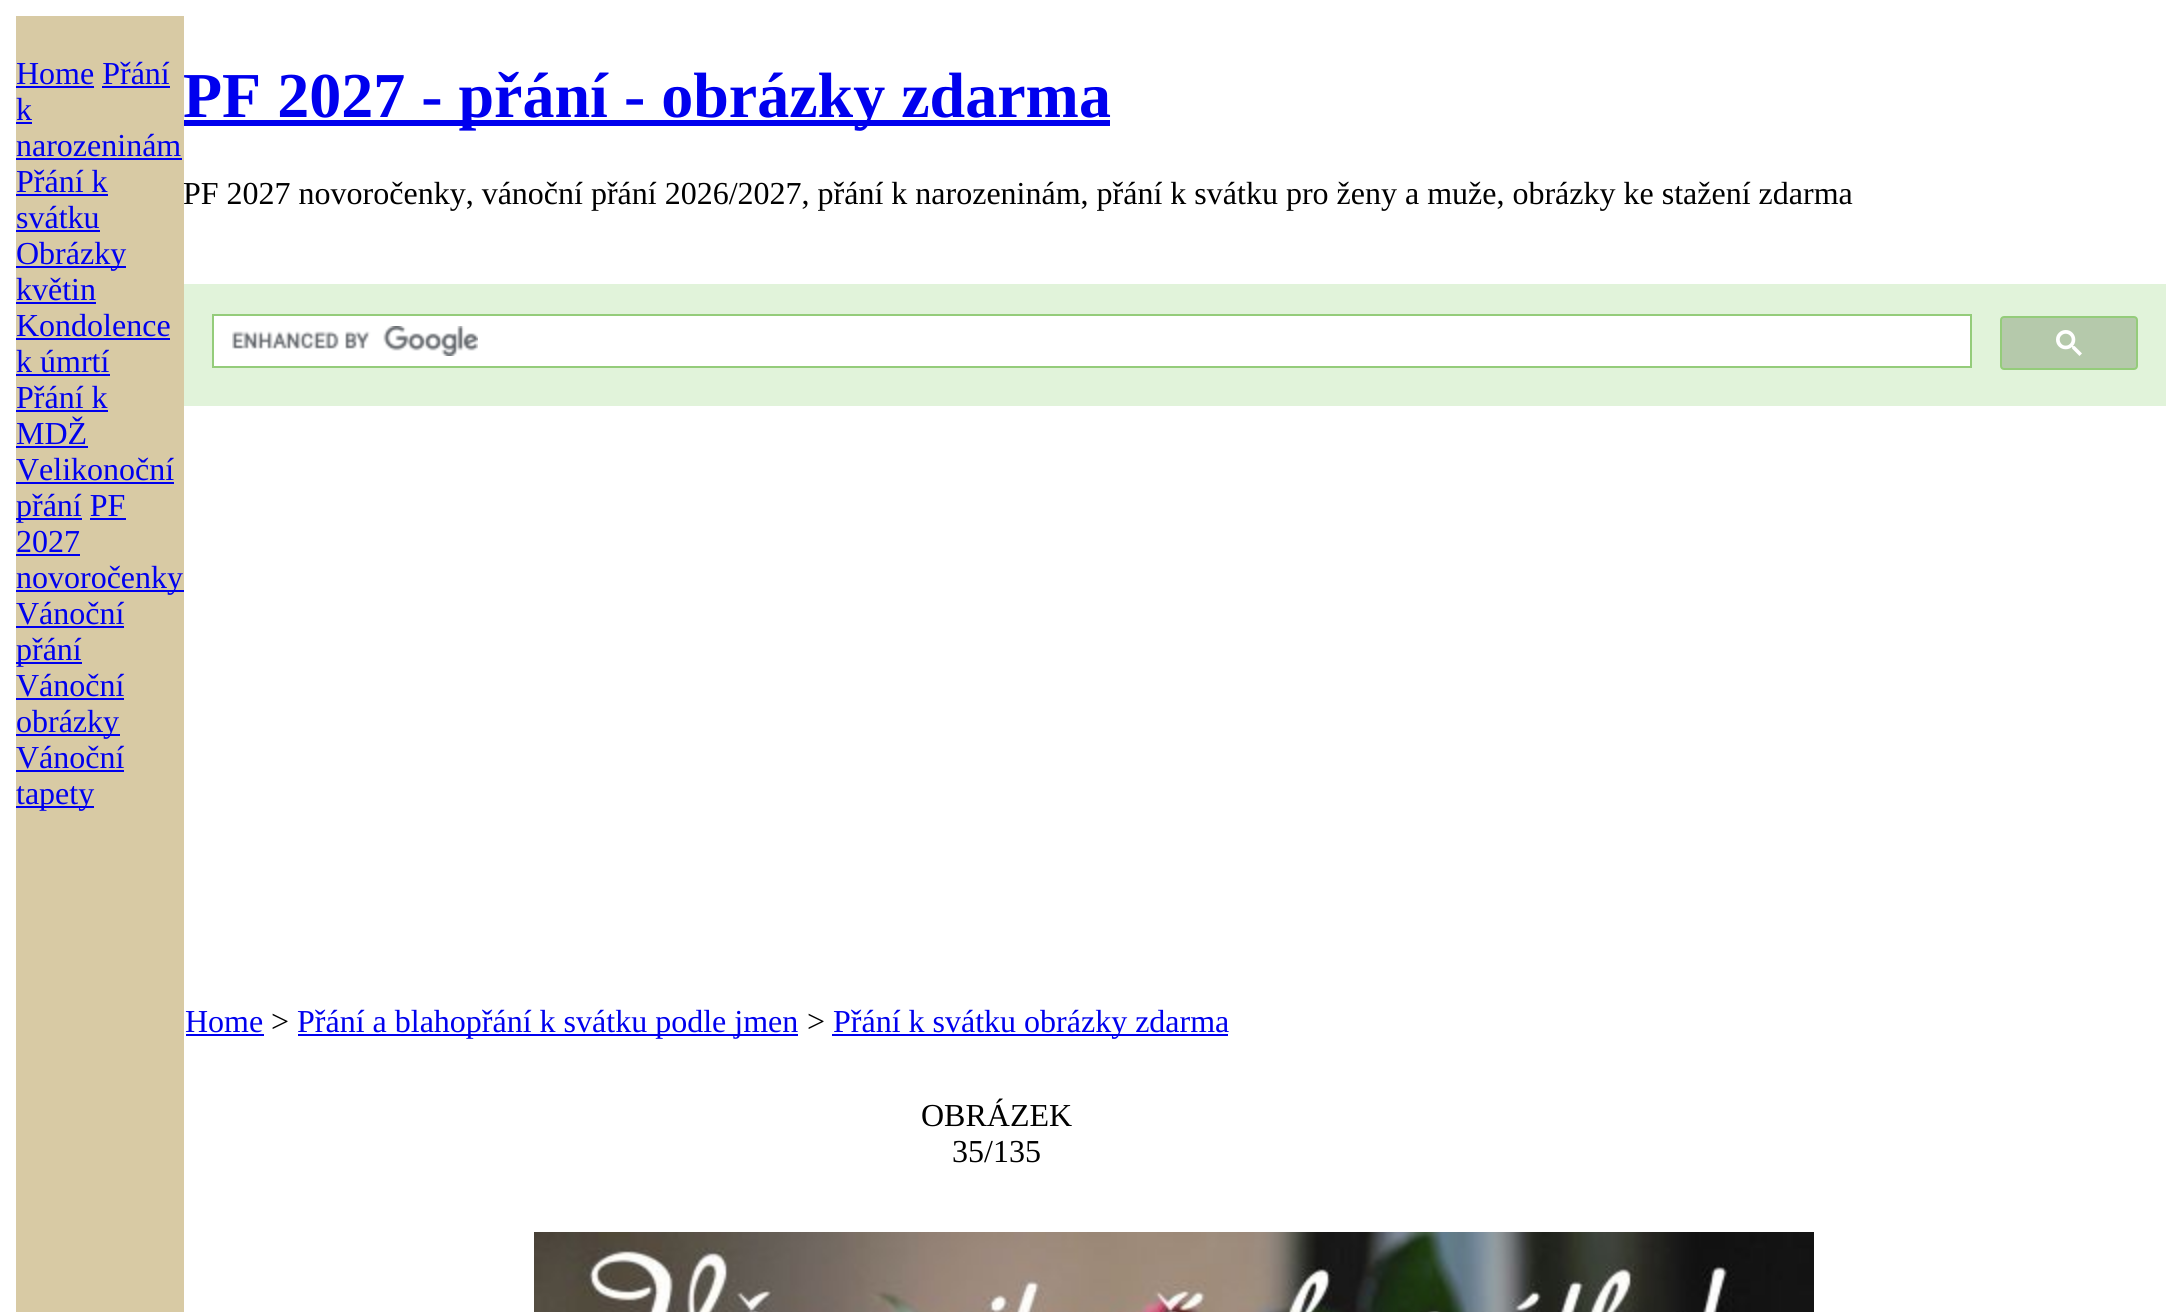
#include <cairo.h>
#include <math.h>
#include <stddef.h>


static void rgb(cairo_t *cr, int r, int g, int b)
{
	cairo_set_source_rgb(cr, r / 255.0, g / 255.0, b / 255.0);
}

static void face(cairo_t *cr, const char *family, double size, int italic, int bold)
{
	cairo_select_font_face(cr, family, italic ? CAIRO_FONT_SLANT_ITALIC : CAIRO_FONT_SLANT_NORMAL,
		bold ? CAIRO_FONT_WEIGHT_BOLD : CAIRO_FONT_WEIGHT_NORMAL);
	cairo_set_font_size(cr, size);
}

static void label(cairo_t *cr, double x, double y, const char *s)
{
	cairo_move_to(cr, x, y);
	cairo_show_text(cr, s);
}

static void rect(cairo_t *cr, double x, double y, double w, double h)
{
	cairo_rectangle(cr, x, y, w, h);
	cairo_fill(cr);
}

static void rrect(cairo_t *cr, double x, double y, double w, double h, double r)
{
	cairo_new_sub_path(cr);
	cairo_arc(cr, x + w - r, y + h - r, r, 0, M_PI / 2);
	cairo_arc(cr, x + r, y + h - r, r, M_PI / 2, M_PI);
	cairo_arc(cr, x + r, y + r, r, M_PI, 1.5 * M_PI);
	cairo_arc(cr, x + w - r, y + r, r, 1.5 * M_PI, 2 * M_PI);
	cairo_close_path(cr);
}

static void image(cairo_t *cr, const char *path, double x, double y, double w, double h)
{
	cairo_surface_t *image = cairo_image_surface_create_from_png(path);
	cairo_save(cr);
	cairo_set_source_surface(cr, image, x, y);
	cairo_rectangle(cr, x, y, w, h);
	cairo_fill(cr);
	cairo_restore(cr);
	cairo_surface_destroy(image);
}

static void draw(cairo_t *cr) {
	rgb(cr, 255, 255, 255);
	cairo_paint(cr);
	rgb(cr, 216, 202, 164);
	rect(cr, 16, 16, 168, 1296);
	face(cr, "Liberation Serif", 32, 0, 0);
	rgb(cr, 0, 0, 238);
	label(cr, 16, 84, "Home Přání");
	rect(cr, 16, 86, 78, 2);
	label(cr, 16, 120, "k");
	rect(cr, 102, 86, 68, 2);
	rect(cr, 16, 122, 16, 2);
	label(cr, 16, 156, "narozeninám");
	rect(cr, 16, 158, 166, 2);
	label(cr, 16, 192, "Přání k");
	rect(cr, 16, 194, 92, 2);
	label(cr, 16, 228, "svátku");
	rect(cr, 16, 230, 84, 2);
	rect(cr, 16, 266, 110, 2);
	label(cr, 16, 264, "Obrázky");
	label(cr, 16, 300, "květin");
	rect(cr, 16, 302, 80, 2);
	label(cr, 16, 336, "Kondolence");
	rect(cr, 16, 338, 154, 2);
	label(cr, 16, 372, "k úmrtí");
	rect(cr, 16, 374, 94, 2);
	label(cr, 16, 408, "Přání k");
	rect(cr, 16, 410, 92, 2);
	label(cr, 16, 444, "MDŽ");
	rect(cr, 16, 446, 72, 2);
	label(cr, 16, 480, "Velikonoční");
	rect(cr, 16, 482, 158, 2);
	rect(cr, 16, 518, 66, 2);
	label(cr, 16, 516, "přání PF");
	label(cr, 16, 552, "2027");
	rect(cr, 90, 518, 36, 2);
	rect(cr, 16, 554, 64, 2);
	rect(cr, 16, 590, 168, 2);
	label(cr, 16, 588, "novoročenky");
	label(cr, 16, 624, "Vánoční");
	rect(cr, 16, 626, 108, 2);
	rect(cr, 16, 662, 66, 2);
	label(cr, 16, 660, "přání");
	label(cr, 16, 696, "Vánoční");
	rect(cr, 16, 698, 108, 2);
	rect(cr, 16, 734, 104, 2);
	label(cr, 16, 732, "obrázky");
	label(cr, 16, 768, "Vánoční");
	rect(cr, 16, 770, 108, 2);
	rect(cr, 16, 806, 78, 2);
	label(cr, 16, 804, "tapety");
	rect(cr, 184, 120, 926, 6);
	face(cr, "Liberation Serif", 64, 0, 1);
	label(cr, 183, 117, "PF 2027 - přání - obrázky zdarma");
	face(cr, "Liberation Serif", 32, 0, 0);
	rgb(cr, 0, 0, 0);
	label(cr, 183, 204, "PF 2027 novoročenky, vánoční přání 2026/2027, přání k narozeninám, přání k svátku pro ženy a muže, obrázky ke stažení zdarma");
	rgb(cr, 225, 243, 218);
	rect(cr, 184, 284, 1982, 122);
	rgb(cr, 255, 255, 255);
	cairo_rectangle(cr, 213, 315, 1758, 52);
	cairo_fill_preserve(cr);
	rgb(cr, 148, 204, 122);
	cairo_stroke(cr);
	image(cr, "image0.png", 232, 326, 246, 30);
	rgb(cr, 181, 201, 171);
	rrect(cr, 2001, 317, 136, 52, 3);
	cairo_fill_preserve(cr);
	rgb(cr, 148, 204, 122);
	cairo_stroke(cr);
	image(cr, "image1.png", 2056, 330, 26, 26);
	rgb(cr, 0, 0, 238);
	label(cr, 185, 1032, "Home");
	rect(cr, 186, 1034, 78, 2);
	rgb(cr, 0, 0, 0);
	label(cr, 271, 1032, ">");
	rgb(cr, 0, 0, 238);
	rect(cr, 298, 1034, 500, 2);
	label(cr, 297, 1032, "Přání a blahopřání k svátku podle jmen");
	rgb(cr, 0, 0, 0);
	label(cr, 807, 1032, ">");
	rgb(cr, 0, 0, 238);
	rect(cr, 832, 1034, 396, 2);
	label(cr, 833, 1032, "Přání k svátku obrázky zdarma");
	rgb(cr, 0, 0, 0);
	label(cr, 921, 1126, "OBRÁZEK");
	label(cr, 952, 1162, "35/135");
	image(cr, "image2.png", 534, 1232, 1280, 80);
}

int main(void) {
	cairo_surface_t *surface = cairo_image_surface_create(CAIRO_FORMAT_RGB24, 2181, 1312);
	cairo_t *cr = cairo_create(surface);
	cairo_font_options_t *options = cairo_font_options_create();
	cairo_font_options_set_hint_metrics(options, CAIRO_HINT_METRICS_OFF);
	cairo_font_options_set_hint_style(options, CAIRO_HINT_STYLE_NONE);
	cairo_set_font_options(cr, options);
	cairo_set_miter_limit(cr, 4);
	draw(cr);
	cairo_surface_write_to_png(surface, "render.png");
	cairo_font_options_destroy(options);
	cairo_destroy(cr);
	cairo_surface_destroy(surface);
	return 0;
}
